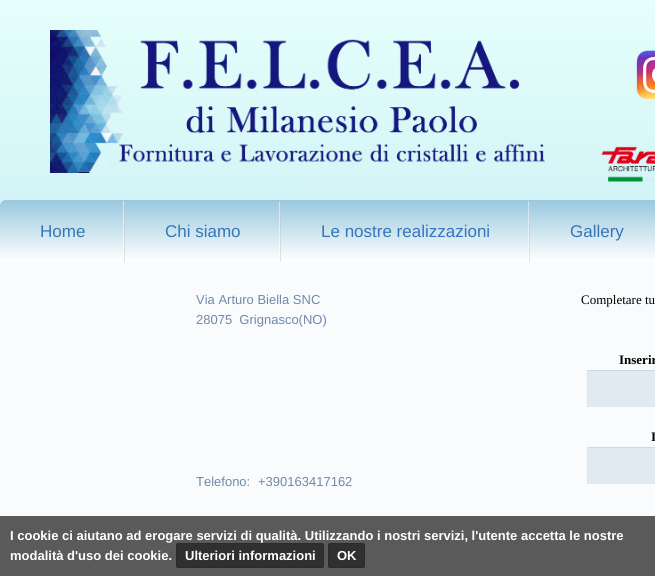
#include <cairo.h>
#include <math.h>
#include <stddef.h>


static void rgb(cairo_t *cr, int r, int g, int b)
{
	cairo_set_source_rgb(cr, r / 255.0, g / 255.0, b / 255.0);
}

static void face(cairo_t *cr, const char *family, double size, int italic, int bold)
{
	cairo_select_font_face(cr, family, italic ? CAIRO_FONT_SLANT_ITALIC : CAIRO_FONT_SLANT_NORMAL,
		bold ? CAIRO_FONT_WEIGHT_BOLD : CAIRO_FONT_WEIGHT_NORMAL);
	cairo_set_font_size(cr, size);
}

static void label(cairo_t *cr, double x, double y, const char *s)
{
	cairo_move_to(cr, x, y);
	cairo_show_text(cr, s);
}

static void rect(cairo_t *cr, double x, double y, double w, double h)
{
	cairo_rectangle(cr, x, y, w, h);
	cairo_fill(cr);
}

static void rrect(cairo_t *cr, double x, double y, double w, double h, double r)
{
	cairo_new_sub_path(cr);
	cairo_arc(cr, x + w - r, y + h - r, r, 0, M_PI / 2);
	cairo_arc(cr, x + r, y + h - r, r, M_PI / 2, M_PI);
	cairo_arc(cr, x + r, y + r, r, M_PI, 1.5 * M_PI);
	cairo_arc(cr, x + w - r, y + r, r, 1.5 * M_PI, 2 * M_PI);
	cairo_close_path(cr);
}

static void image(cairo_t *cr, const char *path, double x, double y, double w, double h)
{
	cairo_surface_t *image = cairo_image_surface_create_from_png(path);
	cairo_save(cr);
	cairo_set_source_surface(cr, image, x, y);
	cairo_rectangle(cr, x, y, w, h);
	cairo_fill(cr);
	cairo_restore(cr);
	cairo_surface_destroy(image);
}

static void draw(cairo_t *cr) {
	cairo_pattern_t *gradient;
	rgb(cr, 255, 255, 255);
	cairo_paint(cr);
	gradient = cairo_pattern_create_linear(327, 0, 328, 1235);
	cairo_pattern_add_color_stop_rgba(gradient, 0, 0.898, 1, 0.984, 1);
	cairo_pattern_add_color_stop_rgba(gradient, 1, 0.459, 0.733, 0.871, 1);
	cairo_set_source(cr, gradient);
	cairo_pattern_destroy(gradient);
	rect(cr, 0, 0, 655, 206);
	image(cr, "image0.png", 50, 30, 495, 143);
	image(cr, "image1.png", 636, 50, 19, 50);
	image(cr, "image2.png", 601, 146, 54, 36);
	gradient = cairo_pattern_create_linear(495, 200, 495, 262);
	cairo_pattern_add_color_stop_rgba(gradient, 0, 0.6, 0.788, 0.871, 1);
	cairo_pattern_add_color_stop_rgba(gradient, 1, 1, 1, 1, 1);
	cairo_set_source(cr, gradient);
	cairo_pattern_destroy(gradient);
	cairo_new_path(cr);
	cairo_move_to(cr, 6, 200);
	cairo_line_to(cr, 655, 200);
	cairo_curve_to(cr, 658.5, 200, 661, 202.5, 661, 206);
	cairo_line_to(cr, 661, 262);
	cairo_line_to(cr, 0, 262);
	cairo_line_to(cr, 0, 206);
	cairo_curve_to(cr, 0, 202.5, 2.5, 200, 6, 200);
	cairo_close_path(cr);
	cairo_fill(cr);
	image(cr, "image3.png", 123, 201, 2, 61);
	face(cr, "Liberation Sans", 17, 0, 0);
	rgb(cr, 52, 117, 187);
	label(cr, 40, 237, "Home");
	image(cr, "image3.png", 279, 201, 2, 61);
	label(cr, 165, 237, "Chi siamo");
	image(cr, "image3.png", 528, 201, 2, 61);
	label(cr, 321, 237, "Le nostre realizzazioni");
	label(cr, 570, 237, "Gallery");
	rgb(cr, 249, 251, 253);
	rect(cr, 0, 262, 655, 254);
	face(cr, "Liberation Sans", 13, 0, 0);
	rgb(cr, 111, 137, 168);
	label(cr, 196, 304, "Via Arturo Biella SNC");
	label(cr, 196, 324, "28075  Grignasco(NO)");
	label(cr, 196, 486, "Telefono:");
	label(cr, 258, 486, "+390163417162");
	face(cr, "Liberation Serif", 13, 0, 0);
	rgb(cr, 0, 0, 0);
	label(cr, 581, 304, "Completare tu");
	face(cr, "Liberation Serif", 13, 0, 1);
	label(cr, 619, 364, "Inserir");
	rgb(cr, 225, 233, 241);
	rect(cr, 588, 371, 67, 36);
	rgb(cr, 208, 216, 223);
	rect(cr, 587, 370, 68, 1);
	rgb(cr, 219, 227, 234);
	rect(cr, 587, 370, 1, 37);
	rgb(cr, 0, 0, 0);
	label(cr, 651, 441, "I");
	rgb(cr, 225, 233, 241);
	rect(cr, 588, 448, 67, 36);
	rgb(cr, 208, 216, 223);
	rect(cr, 587, 447, 68, 1);
	rgb(cr, 219, 227, 234);
	rect(cr, 587, 447, 1, 37);
	rgb(cr, 90, 90, 90);
	rect(cr, 0, 516, 655, 60);
	face(cr, "Liberation Sans", 13, 0, 1);
	rgb(cr, 255, 255, 255);
	label(cr, 10, 540, "I cookie ci aiutano ad erogare servizi di qualità. Utilizzando i nostri servizi, l'utente accetta le nostre");
	label(cr, 10, 560, "modalità d'uso dei cookie.");
	rgb(cr, 48, 48, 48);
	rrect(cr, 176, 543, 148, 25, 2);
	cairo_fill(cr);
	rrect(cr, 176.5, 543.5, 147, 24, 1.5);
	cairo_set_source_rgba(cr, 0, 0, 0, 0.1);
	cairo_set_line_width(cr, 1);
	cairo_stroke(cr);
	rgb(cr, 255, 255, 255);
	label(cr, 185, 560, "Ulteriori informazioni");
	rgb(cr, 48, 48, 48);
	rrect(cr, 328, 543, 37, 25, 2);
	cairo_fill(cr);
	rrect(cr, 328.5, 543.5, 36, 24, 1.5);
	cairo_set_source_rgba(cr, 0, 0, 0, 0.1);
	cairo_stroke(cr);
	rgb(cr, 255, 255, 255);
	label(cr, 337, 560, "OK");
}

int main(void) {
	cairo_surface_t *surface = cairo_image_surface_create(CAIRO_FORMAT_RGB24, 655, 576);
	cairo_t *cr = cairo_create(surface);
	cairo_font_options_t *options = cairo_font_options_create();
	cairo_font_options_set_hint_metrics(options, CAIRO_HINT_METRICS_OFF);
	cairo_font_options_set_hint_style(options, CAIRO_HINT_STYLE_NONE);
	cairo_set_font_options(cr, options);
	cairo_set_miter_limit(cr, 4);
	draw(cr);
	cairo_surface_write_to_png(surface, "render.png");
	cairo_font_options_destroy(options);
	cairo_destroy(cr);
	cairo_surface_destroy(surface);
	return 0;
}
